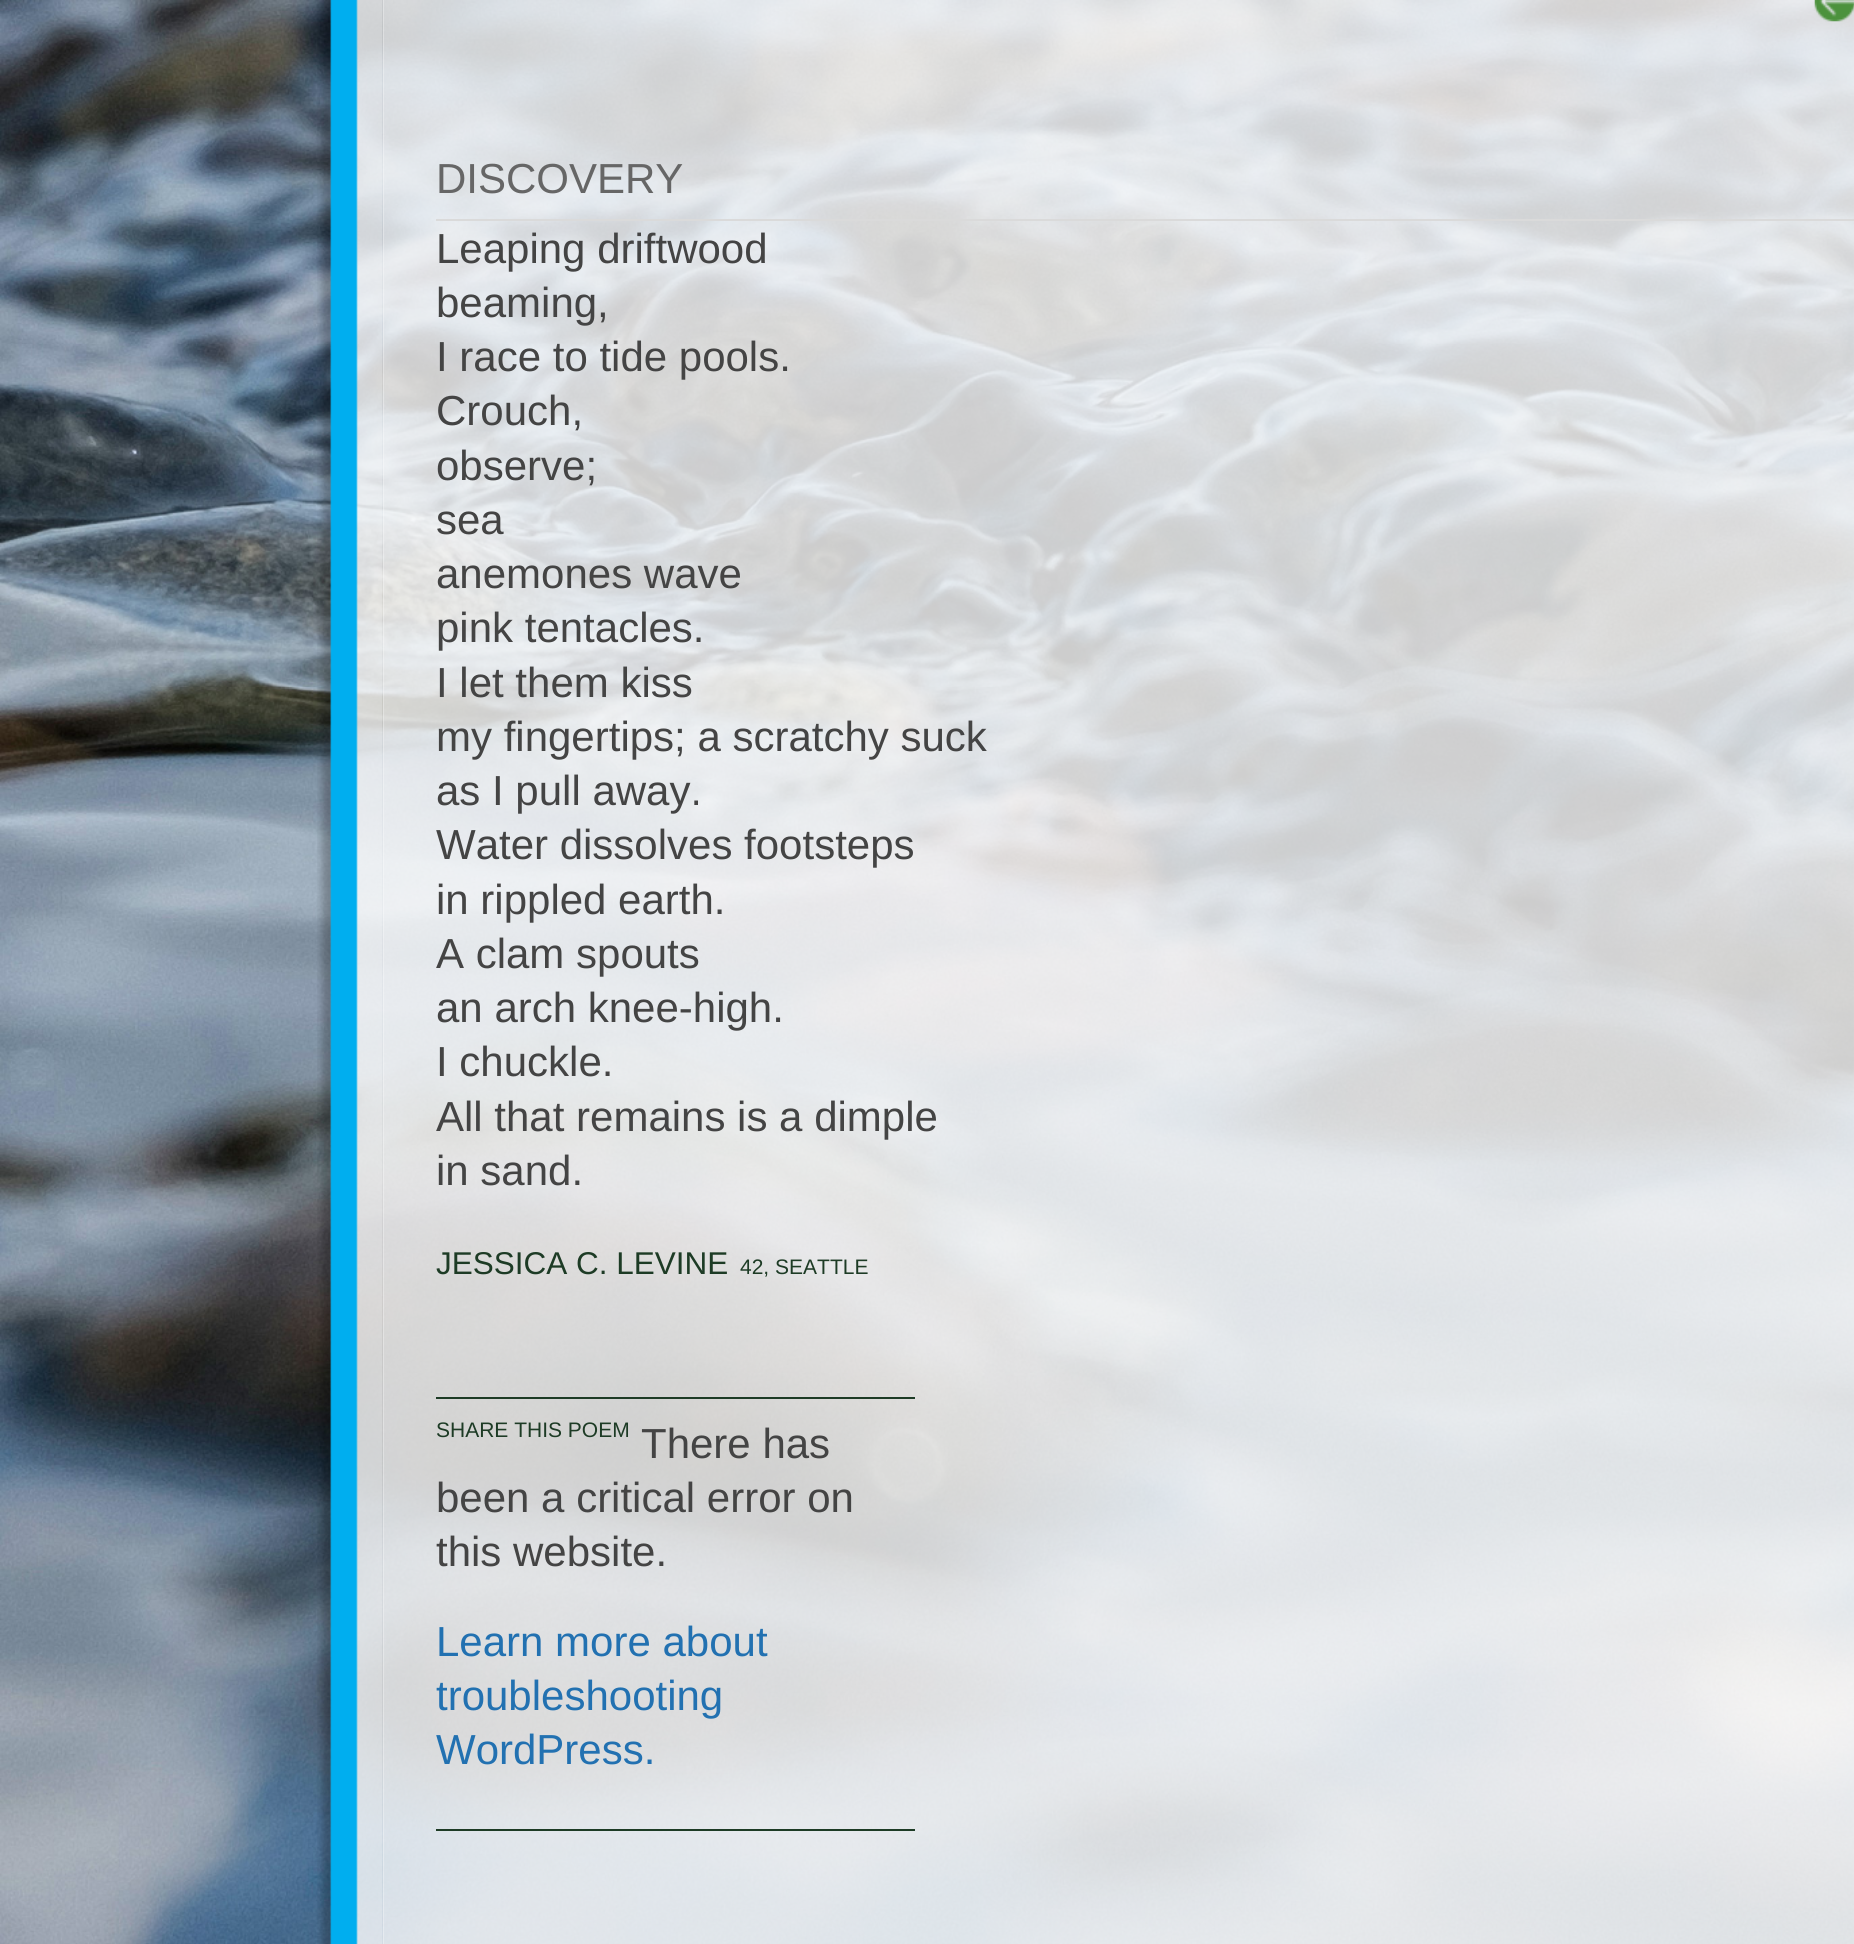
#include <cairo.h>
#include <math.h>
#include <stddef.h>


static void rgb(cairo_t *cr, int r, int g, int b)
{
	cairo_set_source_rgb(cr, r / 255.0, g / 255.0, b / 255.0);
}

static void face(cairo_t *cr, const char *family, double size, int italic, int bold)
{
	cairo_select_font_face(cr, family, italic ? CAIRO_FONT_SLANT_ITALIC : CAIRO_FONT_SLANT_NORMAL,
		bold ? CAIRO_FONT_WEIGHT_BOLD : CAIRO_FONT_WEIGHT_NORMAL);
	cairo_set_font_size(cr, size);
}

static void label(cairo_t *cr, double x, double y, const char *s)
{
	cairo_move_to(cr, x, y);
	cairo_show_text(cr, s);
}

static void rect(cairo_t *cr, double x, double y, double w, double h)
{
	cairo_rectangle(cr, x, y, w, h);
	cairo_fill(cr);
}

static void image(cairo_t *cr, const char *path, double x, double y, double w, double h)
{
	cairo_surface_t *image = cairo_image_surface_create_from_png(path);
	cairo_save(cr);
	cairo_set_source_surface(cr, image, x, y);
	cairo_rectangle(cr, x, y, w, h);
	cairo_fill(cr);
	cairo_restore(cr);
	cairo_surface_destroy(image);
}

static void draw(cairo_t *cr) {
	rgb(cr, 255, 255, 255);
	cairo_paint(cr);
	image(cr, "image0.png", 0, 0, 1854, 1944);
	image(cr, "image1.png", 317, 0, 67, 1944);
	cairo_set_source_rgba(cr, 1, 1, 1, 0.8);
	rect(cr, 383, 0, 1471, 1944);
	image(cr, "image2.png", 1814, 0, 40, 22);
	rgb(cr, 218, 218, 218);
	rect(cr, 436, 219, 1418, 2);
	face(cr, "Liberation Sans", 42, 0, 0);
	rgb(cr, 102, 102, 102);
	label(cr, 436, 193, "DISCOVERY");
	rgb(cr, 68, 68, 68);
	label(cr, 436, 263, "Leaping driftwood");
	label(cr, 436, 317, "beaming,");
	label(cr, 436, 371, "I race to tide pools.");
	label(cr, 436, 425, "Crouch,");
	label(cr, 436, 480, "observe;");
	label(cr, 436, 534, "sea");
	label(cr, 436, 588, "anemones wave");
	label(cr, 436, 642, "pink tentacles.");
	label(cr, 436, 697, "I let them kiss");
	label(cr, 436, 751, "my fingertips; a scratchy suck");
	label(cr, 436, 805, "as I pull away.");
	label(cr, 436, 859, "Water dissolves footsteps");
	label(cr, 436, 914, "in rippled earth.");
	label(cr, 436, 968, "A clam spouts");
	label(cr, 436, 1022, "an arch knee-high.");
	label(cr, 436, 1076, "I chuckle.");
	label(cr, 436, 1131, "All that remains is a dimple");
	label(cr, 436, 1185, "in sand.");
	face(cr, "Liberation Sans", 31.5, 0, 0);
	rgb(cr, 29, 59, 37);
	label(cr, 436, 1274, "JESSICA C. LEVINE");
	face(cr, "Liberation Sans", 21, 0, 0);
	label(cr, 740, 1274, "42, SEATTLE");
	rect(cr, 436, 1397, 479, 2);
	rect(cr, 436, 1829, 479, 2);
	label(cr, 436, 1437, "SHARE THIS POEM");
	face(cr, "Liberation Sans", 42, 0, 0);
	rgb(cr, 68, 68, 68);
	label(cr, 641, 1458, "There has");
	label(cr, 436, 1512, "been a critical error on");
	label(cr, 436, 1566, "this website.");
	rgb(cr, 34, 113, 177);
	label(cr, 436, 1656, "Learn more about");
	label(cr, 436, 1710, "troubleshooting");
	label(cr, 436, 1764, "WordPress.");
}

int main(void) {
	cairo_surface_t *surface = cairo_image_surface_create(CAIRO_FORMAT_RGB24, 1854, 1944);
	cairo_t *cr = cairo_create(surface);
	cairo_font_options_t *options = cairo_font_options_create();
	cairo_font_options_set_hint_metrics(options, CAIRO_HINT_METRICS_OFF);
	cairo_font_options_set_hint_style(options, CAIRO_HINT_STYLE_NONE);
	cairo_set_font_options(cr, options);
	cairo_set_miter_limit(cr, 4);
	draw(cr);
	cairo_surface_write_to_png(surface, "render.png");
	cairo_font_options_destroy(options);
	cairo_destroy(cr);
	cairo_surface_destroy(surface);
	return 0;
}
